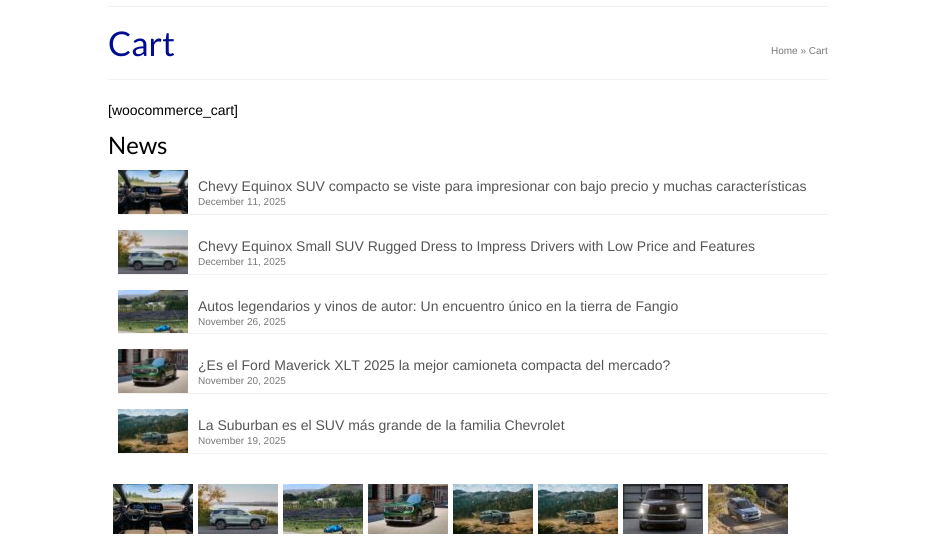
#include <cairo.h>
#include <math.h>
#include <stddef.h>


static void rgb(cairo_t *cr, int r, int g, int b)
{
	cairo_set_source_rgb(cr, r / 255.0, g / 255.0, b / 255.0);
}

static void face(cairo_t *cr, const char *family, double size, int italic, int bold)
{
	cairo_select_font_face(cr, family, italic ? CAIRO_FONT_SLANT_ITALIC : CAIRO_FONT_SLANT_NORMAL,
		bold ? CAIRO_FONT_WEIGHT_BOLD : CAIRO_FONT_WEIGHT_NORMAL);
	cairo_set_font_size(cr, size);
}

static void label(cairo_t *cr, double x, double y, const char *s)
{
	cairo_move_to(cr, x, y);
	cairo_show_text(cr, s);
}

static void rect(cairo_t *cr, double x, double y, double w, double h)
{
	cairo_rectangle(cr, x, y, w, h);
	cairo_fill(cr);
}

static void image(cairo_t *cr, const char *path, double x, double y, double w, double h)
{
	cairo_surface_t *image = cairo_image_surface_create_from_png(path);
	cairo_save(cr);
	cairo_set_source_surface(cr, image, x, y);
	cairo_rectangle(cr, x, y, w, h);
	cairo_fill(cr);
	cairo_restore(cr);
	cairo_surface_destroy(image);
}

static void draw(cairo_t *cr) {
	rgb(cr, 255, 255, 255);
	cairo_paint(cr);
	rgb(cr, 242, 242, 242);
	rect(cr, 108, 6, 720, 1);
	rect(cr, 108, 79, 720, 1);
	face(cr, "Lato", 34, 0, 0);
	rgb(cr, 0, 12, 145);
	label(cr, 108, 56, "Cart");
	face(cr, "Liberation Sans", 10, 0, 0);
	rgb(cr, 119, 119, 119);
	label(cr, 771, 54, "Home » Cart");
	face(cr, "Liberation Sans", 14, 0, 0);
	rgb(cr, 0, 0, 0);
	label(cr, 108, 115, "[woocommerce_cart]");
	face(cr, "Lato", 24, 0, 0);
	label(cr, 108, 154, "News");
	rgb(cr, 242, 242, 242);
	rect(cr, 118, 214, 710, 1);
	image(cr, "image0.png", 118, 170, 70, 44);
	face(cr, "Liberation Sans", 14, 0, 0);
	rgb(cr, 85, 85, 85);
	label(cr, 198, 191, "Chevy Equinox SUV compacto se viste para impresionar con bajo precio y muchas características");
	face(cr, "Liberation Sans", 10, 0, 0);
	rgb(cr, 119, 119, 119);
	label(cr, 198, 205, "December 11, 2025");
	rgb(cr, 242, 242, 242);
	rect(cr, 118, 274, 710, 1);
	image(cr, "image1.png", 118, 230, 70, 44);
	face(cr, "Liberation Sans", 14, 0, 0);
	rgb(cr, 85, 85, 85);
	label(cr, 198, 251, "Chevy Equinox Small SUV Rugged Dress to Impress Drivers with Low Price and Features");
	face(cr, "Liberation Sans", 10, 0, 0);
	rgb(cr, 119, 119, 119);
	label(cr, 198, 265, "December 11, 2025");
	rgb(cr, 242, 242, 242);
	rect(cr, 118, 333, 710, 1);
	image(cr, "image2.png", 118, 290, 70, 43);
	face(cr, "Liberation Sans", 14, 0, 0);
	rgb(cr, 85, 85, 85);
	label(cr, 198, 311, "Autos legendarios y vinos de autor: Un encuentro único en la tierra de Fangio");
	face(cr, "Liberation Sans", 10, 0, 0);
	rgb(cr, 119, 119, 119);
	label(cr, 198, 325, "November 26, 2025");
	rgb(cr, 242, 242, 242);
	rect(cr, 118, 393, 710, 1);
	image(cr, "image3.png", 118, 349, 70, 44);
	face(cr, "Liberation Sans", 14, 0, 0);
	rgb(cr, 85, 85, 85);
	label(cr, 198, 370, "¿Es el Ford Maverick XLT 2025 la mejor camioneta compacta del mercado?");
	face(cr, "Liberation Sans", 10, 0, 0);
	rgb(cr, 119, 119, 119);
	label(cr, 198, 384, "November 20, 2025");
	rgb(cr, 242, 242, 242);
	rect(cr, 118, 453, 710, 1);
	image(cr, "image4.png", 118, 409, 70, 44);
	face(cr, "Liberation Sans", 14, 0, 0);
	rgb(cr, 85, 85, 85);
	label(cr, 198, 430, "La Suburban es el SUV más grande de la familia Chevrolet");
	face(cr, "Liberation Sans", 10, 0, 0);
	rgb(cr, 119, 119, 119);
	label(cr, 198, 444, "November 19, 2025");
	image(cr, "image5.png", 113, 484, 80, 50);
	image(cr, "image6.png", 198, 484, 80, 50);
	image(cr, "image7.png", 283, 484, 80, 50);
	image(cr, "image8.png", 368, 484, 80, 50);
	image(cr, "image9.png", 453, 484, 80, 50);
	image(cr, "image9.png", 538, 484, 80, 50);
	image(cr, "image10.png", 623, 484, 80, 50);
	image(cr, "image11.png", 708, 484, 80, 50);
}

int main(void) {
	cairo_surface_t *surface = cairo_image_surface_create(CAIRO_FORMAT_RGB24, 936, 537);
	cairo_t *cr = cairo_create(surface);
	cairo_font_options_t *options = cairo_font_options_create();
	cairo_font_options_set_hint_metrics(options, CAIRO_HINT_METRICS_OFF);
	cairo_font_options_set_hint_style(options, CAIRO_HINT_STYLE_NONE);
	cairo_set_font_options(cr, options);
	cairo_set_miter_limit(cr, 4);
	draw(cr);
	cairo_surface_write_to_png(surface, "render.png");
	cairo_font_options_destroy(options);
	cairo_destroy(cr);
	cairo_surface_destroy(surface);
	return 0;
}
